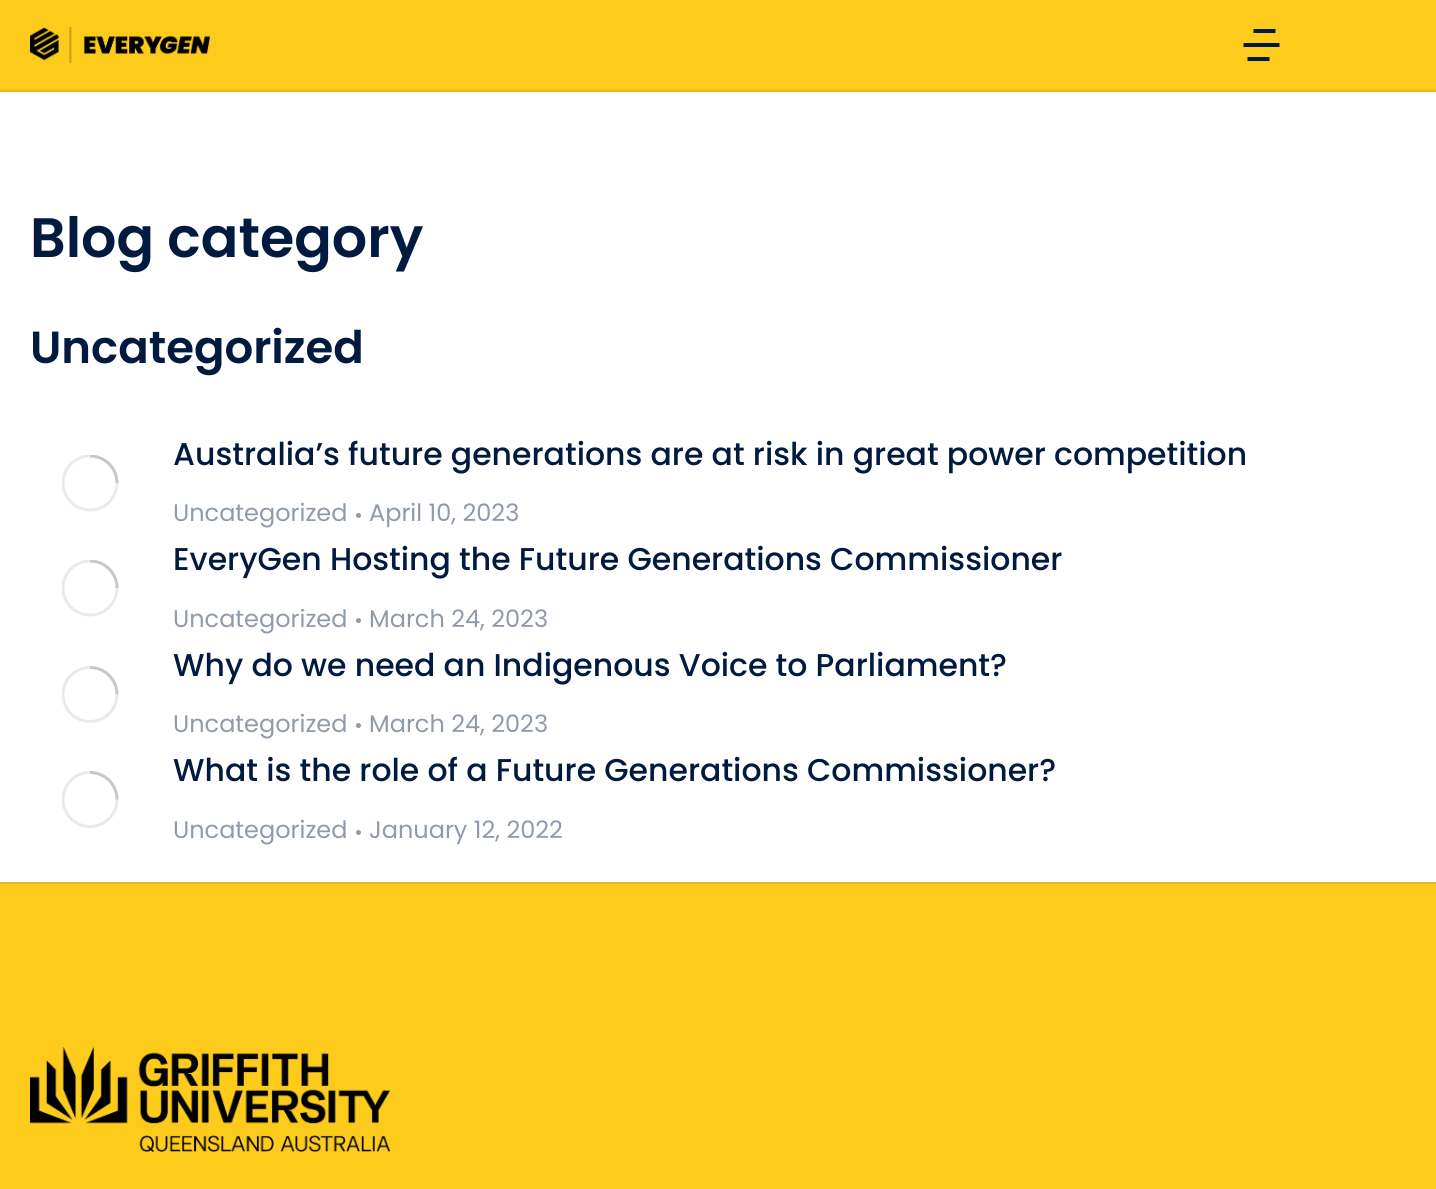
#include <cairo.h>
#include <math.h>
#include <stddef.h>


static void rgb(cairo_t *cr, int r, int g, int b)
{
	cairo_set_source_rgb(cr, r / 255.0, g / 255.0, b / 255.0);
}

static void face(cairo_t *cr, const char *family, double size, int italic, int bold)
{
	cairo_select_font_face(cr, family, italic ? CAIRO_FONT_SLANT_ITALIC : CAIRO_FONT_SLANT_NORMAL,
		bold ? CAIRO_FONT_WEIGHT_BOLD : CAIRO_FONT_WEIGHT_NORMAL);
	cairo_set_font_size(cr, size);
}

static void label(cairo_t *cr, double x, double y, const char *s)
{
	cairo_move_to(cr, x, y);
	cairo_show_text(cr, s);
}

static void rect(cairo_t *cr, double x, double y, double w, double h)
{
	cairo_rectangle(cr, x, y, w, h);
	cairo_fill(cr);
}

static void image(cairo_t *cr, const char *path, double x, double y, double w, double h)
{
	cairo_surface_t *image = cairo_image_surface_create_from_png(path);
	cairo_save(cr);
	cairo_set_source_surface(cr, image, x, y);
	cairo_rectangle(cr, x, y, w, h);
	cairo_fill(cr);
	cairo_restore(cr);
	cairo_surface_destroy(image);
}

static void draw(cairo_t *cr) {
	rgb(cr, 255, 255, 255);
	cairo_paint(cr);
	rgb(cr, 253, 203, 27);
	rect(cr, 0, 0, 1436, 90);
	rgb(cr, 225, 184, 31);
	rect(cr, 0, 90, 1436, 2);
	image(cr, "image0.png", 30, 27, 180, 36);
	rgb(cr, 0, 26, 64);
	cairo_new_path(cr);
	cairo_move_to(cr, 1269.5, 57);
	cairo_line_to(cr, 1269.5, 61);
	cairo_line_to(cr, 1247.5, 61);
	cairo_line_to(cr, 1247.5, 57);
	cairo_close_path(cr);
	cairo_move_to(cr, 1279.5, 43);
	cairo_line_to(cr, 1279.5, 47);
	cairo_line_to(cr, 1243.5, 47);
	cairo_line_to(cr, 1243.5, 43);
	cairo_close_path(cr);
	cairo_move_to(cr, 1275.5, 29);
	cairo_line_to(cr, 1275.5, 33);
	cairo_line_to(cr, 1253.5, 33);
	cairo_line_to(cr, 1253.5, 29);
	cairo_close_path(cr);
	cairo_fill(cr);
	face(cr, "Poppins SemiBold", 55.5, 0, 0);
	label(cr, 30, 257, "Blog category");
	face(cr, "Poppins SemiBold", 45, 0, 0);
	label(cr, 30, 363, "Uncategorized");
	cairo_save(cr);
	cairo_rectangle(cr, 62, 455, 57, 57);
	cairo_clip(cr);
	cairo_arc(cr, 90, 483, 27, 0, 2 * M_PI);
	rgb(cr, 234, 234, 234);
	cairo_set_line_width(cr, 3);
	cairo_stroke(cr);
	cairo_new_path(cr);
	cairo_move_to(cr, 117, 483);
	cairo_curve_to(cr, 117, 468, 105, 456, 90, 456);
	cairo_set_source_rgba(cr, 0.4, 0.4, 0.4, 0.25);
	cairo_stroke(cr);
	cairo_restore(cr);
	face(cr, "Poppins Medium", 31.5, 0, 0);
	label(cr, 173, 465, "Australia’s future generations are at risk in great power competition");
	face(cr, "Poppins", 24, 0, 0);
	rgb(cr, 143, 154, 171);
	label(cr, 173, 521, "Uncategorized");
	cairo_new_path(cr);
	cairo_arc(cr, 358.5, 515.5, 2.5, 0, 2 * M_PI);
	cairo_fill(cr);
	label(cr, 369, 521, "April 10, 2023");
	cairo_save(cr);
	cairo_rectangle(cr, 62, 560, 57, 57);
	cairo_clip(cr);
	cairo_arc(cr, 90, 588, 27, 0, 2 * M_PI);
	rgb(cr, 234, 234, 234);
	cairo_set_line_width(cr, 3);
	cairo_stroke(cr);
	cairo_new_path(cr);
	cairo_move_to(cr, 117, 588);
	cairo_curve_to(cr, 117, 573, 105, 561, 90, 561);
	cairo_set_source_rgba(cr, 0.4, 0.4, 0.4, 0.25);
	cairo_stroke(cr);
	cairo_restore(cr);
	face(cr, "Poppins Medium", 31.5, 0, 0);
	rgb(cr, 0, 26, 64);
	label(cr, 173, 570, "EveryGen Hosting the Future Generations Commissioner");
	face(cr, "Poppins", 24, 0, 0);
	rgb(cr, 143, 154, 171);
	label(cr, 173, 627, "Uncategorized");
	cairo_new_path(cr);
	cairo_arc(cr, 358.5, 620.5, 2.5, 0, 2 * M_PI);
	cairo_fill(cr);
	label(cr, 369, 627, "March 24, 2023");
	cairo_save(cr);
	cairo_rectangle(cr, 62, 666, 57, 57);
	cairo_clip(cr);
	cairo_arc(cr, 90, 694.5, 27, 0, 2 * M_PI);
	rgb(cr, 234, 234, 234);
	cairo_set_line_width(cr, 3);
	cairo_stroke(cr);
	cairo_restore(cr);
	cairo_new_path(cr);
	cairo_move_to(cr, 117, 694.5);
	cairo_curve_to(cr, 117, 679.5, 105, 667.5, 90, 667.5);
	cairo_set_source_rgba(cr, 0.4, 0.4, 0.4, 0.25);
	cairo_set_line_width(cr, 3);
	cairo_stroke(cr);
	face(cr, "Poppins Medium", 31.5, 0, 0);
	rgb(cr, 0, 26, 64);
	label(cr, 173, 676, "Why do we need an Indigenous Voice to Parliament?");
	face(cr, "Poppins", 24, 0, 0);
	rgb(cr, 143, 154, 171);
	label(cr, 173, 732, "Uncategorized");
	cairo_new_path(cr);
	cairo_arc(cr, 358.5, 725.5, 2.5, 0, 2 * M_PI);
	cairo_fill(cr);
	label(cr, 369, 732, "March 24, 2023");
	cairo_save(cr);
	cairo_rectangle(cr, 62, 771, 57, 57);
	cairo_clip(cr);
	cairo_arc(cr, 90, 799.5, 27, 0, 2 * M_PI);
	rgb(cr, 234, 234, 234);
	cairo_stroke(cr);
	cairo_restore(cr);
	cairo_new_path(cr);
	cairo_move_to(cr, 117, 799.5);
	cairo_curve_to(cr, 117, 784.5, 105, 772.5, 90, 772.5);
	cairo_set_source_rgba(cr, 0.4, 0.4, 0.4, 0.25);
	cairo_stroke(cr);
	face(cr, "Poppins Medium", 31.5, 0, 0);
	rgb(cr, 0, 26, 64);
	label(cr, 173, 781, "What is the role of a Future Generations Commissioner?");
	face(cr, "Poppins", 24, 0, 0);
	rgb(cr, 143, 154, 171);
	label(cr, 173, 838, "Uncategorized");
	cairo_new_path(cr);
	cairo_arc(cr, 358.5, 832.5, 2.5, 0, 2 * M_PI);
	cairo_fill(cr);
	label(cr, 369, 838, "January 12, 2022");
	rgb(cr, 253, 203, 27);
	rect(cr, 0, 884, 1436, 305);
	rgb(cr, 225, 184, 31);
	rect(cr, 0, 882, 1436, 2);
	image(cr, "image1.png", 30, 1047, 360, 105);
}

int main(void) {
	cairo_surface_t *surface = cairo_image_surface_create(CAIRO_FORMAT_RGB24, 1436, 1189);
	cairo_t *cr = cairo_create(surface);
	cairo_font_options_t *options = cairo_font_options_create();
	cairo_font_options_set_hint_metrics(options, CAIRO_HINT_METRICS_OFF);
	cairo_font_options_set_hint_style(options, CAIRO_HINT_STYLE_NONE);
	cairo_set_font_options(cr, options);
	cairo_set_miter_limit(cr, 4);
	draw(cr);
	cairo_surface_write_to_png(surface, "render.png");
	cairo_font_options_destroy(options);
	cairo_destroy(cr);
	cairo_surface_destroy(surface);
	return 0;
}
